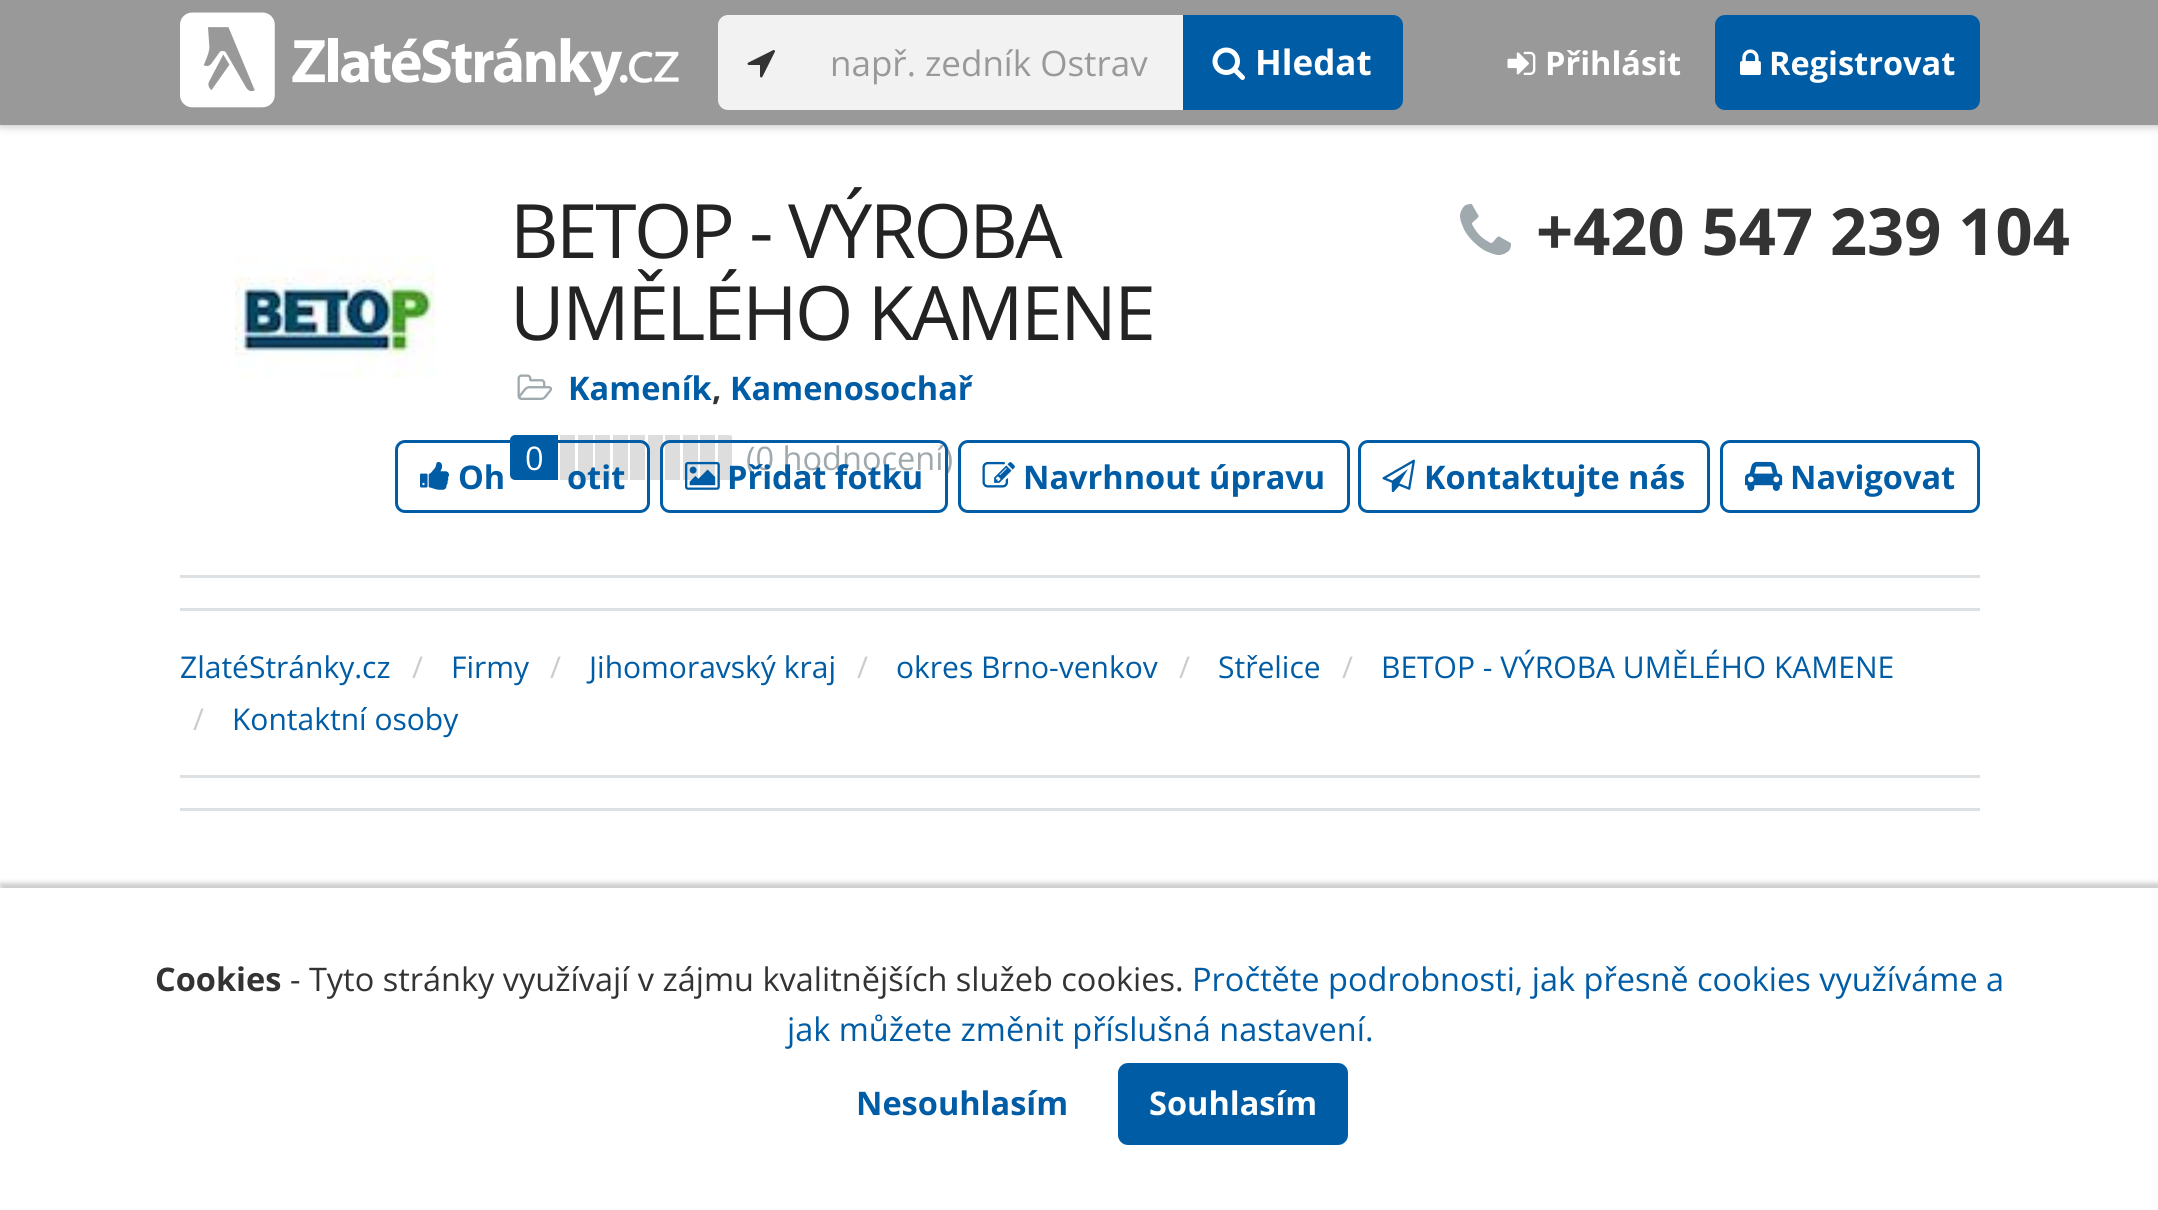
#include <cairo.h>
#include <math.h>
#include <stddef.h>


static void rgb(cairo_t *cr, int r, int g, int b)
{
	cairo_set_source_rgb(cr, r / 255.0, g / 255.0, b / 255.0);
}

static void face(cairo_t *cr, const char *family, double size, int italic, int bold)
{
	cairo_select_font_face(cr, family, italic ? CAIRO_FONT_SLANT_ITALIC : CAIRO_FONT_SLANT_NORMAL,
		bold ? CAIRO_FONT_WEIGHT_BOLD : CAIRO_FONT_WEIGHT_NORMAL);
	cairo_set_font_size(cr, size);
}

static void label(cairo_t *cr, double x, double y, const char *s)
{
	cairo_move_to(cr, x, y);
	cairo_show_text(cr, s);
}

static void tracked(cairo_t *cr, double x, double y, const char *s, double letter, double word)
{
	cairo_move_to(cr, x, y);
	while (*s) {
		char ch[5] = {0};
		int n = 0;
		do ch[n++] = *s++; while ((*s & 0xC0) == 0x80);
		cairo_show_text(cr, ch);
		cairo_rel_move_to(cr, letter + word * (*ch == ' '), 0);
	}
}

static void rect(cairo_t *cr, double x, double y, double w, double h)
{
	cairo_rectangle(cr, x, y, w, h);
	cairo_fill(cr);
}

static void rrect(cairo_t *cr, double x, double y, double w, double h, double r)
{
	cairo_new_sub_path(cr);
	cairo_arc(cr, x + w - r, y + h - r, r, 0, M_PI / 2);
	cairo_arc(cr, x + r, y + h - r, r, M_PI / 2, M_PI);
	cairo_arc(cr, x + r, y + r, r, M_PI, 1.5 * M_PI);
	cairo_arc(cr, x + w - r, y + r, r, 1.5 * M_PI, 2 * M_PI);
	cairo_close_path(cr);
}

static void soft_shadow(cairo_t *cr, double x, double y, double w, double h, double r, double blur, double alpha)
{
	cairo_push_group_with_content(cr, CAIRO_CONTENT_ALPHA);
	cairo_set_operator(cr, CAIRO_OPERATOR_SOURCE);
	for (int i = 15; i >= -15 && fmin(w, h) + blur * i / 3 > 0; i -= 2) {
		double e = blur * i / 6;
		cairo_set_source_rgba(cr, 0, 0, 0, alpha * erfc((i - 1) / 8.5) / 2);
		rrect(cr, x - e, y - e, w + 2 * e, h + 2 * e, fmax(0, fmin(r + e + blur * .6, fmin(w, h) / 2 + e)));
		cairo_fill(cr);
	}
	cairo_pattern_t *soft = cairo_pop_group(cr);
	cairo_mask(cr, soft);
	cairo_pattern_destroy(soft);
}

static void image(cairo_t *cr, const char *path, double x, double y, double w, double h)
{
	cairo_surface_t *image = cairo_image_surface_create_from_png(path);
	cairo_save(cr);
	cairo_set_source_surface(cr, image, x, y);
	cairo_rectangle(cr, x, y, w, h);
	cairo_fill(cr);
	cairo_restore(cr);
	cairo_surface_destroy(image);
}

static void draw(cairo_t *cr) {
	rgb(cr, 255, 255, 255);
	cairo_paint(cr);
	rgb(cr, 0, 0, 0);
	soft_shadow(cr, 0, 0, 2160, 125, 0, 5, 0.3);
	rgb(cr, 153, 153, 153);
	rect(cr, 0, 0, 2158, 125);
	image(cr, "image0.png", 180, 12, 499, 96);
	rgb(cr, 242, 242, 242);
	cairo_new_path(cr);
	cairo_move_to(cr, 728, 15);
	cairo_line_to(cr, 805, 15);
	cairo_line_to(cr, 805, 110);
	cairo_line_to(cr, 728, 110);
	cairo_curve_to(cr, 722.5, 110, 718, 105.5, 718, 100);
	cairo_line_to(cr, 718, 25);
	cairo_curve_to(cr, 718, 19.5, 722.5, 15, 728, 15);
	cairo_close_path(cr);
	cairo_fill(cr);
	image(cr, "image1.png", 747, 50, 28, 28);
	rect(cr, 805, 15, 378, 95);
	face(cr, "Open Sans", 35, 0, 0);
	rgb(cr, 153, 153, 153);
	label(cr, 830, 76, "např. zedník Ostrav");
	rgb(cr, 0, 92, 165);
	cairo_new_path(cr);
	cairo_move_to(cr, 1183, 15);
	cairo_line_to(cr, 1393, 15);
	cairo_curve_to(cr, 1398.5, 15, 1403, 19.5, 1403, 25);
	cairo_line_to(cr, 1403, 100);
	cairo_curve_to(cr, 1403, 105.5, 1398.5, 110, 1393, 110);
	cairo_line_to(cr, 1183, 110);
	cairo_close_path(cr);
	cairo_fill(cr);
	image(cr, "image2.png", 1212, 47, 33, 33);
	face(cr, "Open Sans", 35, 0, 1);
	rgb(cr, 255, 255, 255);
	label(cr, 1255, 75, "Hledat");
	image(cr, "image3.png", 1507, 51, 29, 24);
	face(cr, "Open Sans", 32.5, 0, 1);
	label(cr, 1545, 75, "Přihlásit");
	rgb(cr, 0, 92, 165);
	rrect(cr, 1715, 15, 265, 95, 10);
	cairo_fill(cr);
	image(cr, "image4.png", 1740, 49, 21, 26);
	rgb(cr, 255, 255, 255);
	label(cr, 1769, 75, "Registrovat");
	image(cr, "image5.png", 235, 256, 200, 123);
	face(cr, "Open Sans", 75, 0, 0);
	rgb(cr, 35, 35, 35);
	tracked(cr, 510, 258, "BETOP - VÝROBA", -2.5, 0);
	tracked(cr, 510, 340, "UMĚLÉHO KAMENE", -2.5, 0);
	image(cr, "image6.png", 517, 374, 36, 26);
	face(cr, "Open Sans", 32.5, 0, 1);
	rgb(cr, 0, 92, 165);
	label(cr, 568, 400, "Kameník");
	rgb(cr, 51, 51, 51);
	label(cr, 712, 400, ",");
	rgb(cr, 0, 92, 165);
	label(cr, 730, 400, "Kamenosochař");
	cairo_new_path(cr);
	cairo_move_to(cr, 515, 436.5);
	cairo_line_to(cr, 556.5, 436.5);
	cairo_line_to(cr, 556.5, 478.5);
	cairo_line_to(cr, 515, 478.5);
	cairo_curve_to(cr, 513, 478.5, 511.5, 477, 511.5, 475);
	cairo_line_to(cr, 511.5, 440);
	cairo_curve_to(cr, 511.5, 438, 513, 436.5, 515, 436.5);
	cairo_close_path(cr);
	cairo_fill_preserve(cr);
	cairo_set_line_width(cr, 3);
	cairo_stroke(cr);
	face(cr, "Open Sans", 32.5, 0, 0);
	rgb(cr, 255, 255, 255);
	label(cr, 525, 470, "0");
	rgb(cr, 221, 221, 221);
	rect(cr, 560, 435, 15, 45);
	rect(cr, 578, 435, 15, 45);
	rect(cr, 595, 435, 15, 45);
	rect(cr, 613, 435, 15, 45);
	rect(cr, 630, 435, 15, 45);
	rect(cr, 648, 435, 15, 45);
	rect(cr, 665, 435, 15, 45);
	rect(cr, 683, 435, 15, 45);
	rect(cr, 700, 435, 15, 43);
	cairo_save(cr);
	cairo_rectangle(cr, 560, 435, 173, 45);
	cairo_clip(cr);
	cairo_new_path(cr);
	cairo_move_to(cr, 730, 435);
	cairo_line_to(cr, 718, 435);
	cairo_line_to(cr, 718, 480);
	cairo_curve_to(cr, 734, 480, 732, 483, 732, 467);
	cairo_line_to(cr, 732, 442);
	cairo_curve_to(cr, 732, 439, 733, 435, 730, 435);
	cairo_close_path(cr);
	cairo_fill(cr);
	cairo_restore(cr);
	rgb(cr, 160, 169, 174);
	label(cr, 746, 470, "(0 hodnocení)");
	image(cr, "image7.png", 1460, 204, 51, 51);
	face(cr, "Open Sans", 65, 0, 1);
	rgb(cr, 51, 51, 51);
	label(cr, 1536, 255, "+420 547 239 104");
	rrect(cr, 396.5, 441.5, 252, 70, 8.5);
	rgb(cr, 0, 92, 165);
	cairo_stroke(cr);
	image(cr, "image8.png", 420, 462, 29, 28);
	face(cr, "Open Sans", 32.5, 0, 1);
	label(cr, 458, 489, "Oh");
	label(cr, 567, 489, "otit");
	rrect(cr, 661.5, 441.5, 285, 70, 8.5);
	cairo_stroke(cr);
	image(cr, "image9.png", 685, 461, 35, 29);
	label(cr, 727, 489, "Přidat fotku");
	rrect(cr, 959.5, 441.5, 389, 70, 8.5);
	cairo_stroke(cr);
	image(cr, "image10.png", 982, 461, 33, 27);
	label(cr, 1023, 489, "Navrhnout úpravu");
	rrect(cr, 1359.5, 441.5, 349, 70, 8.5);
	cairo_stroke(cr);
	image(cr, "image11.png", 1382, 459, 33, 34);
	label(cr, 1424, 489, "Kontaktujte nás");
	rrect(cr, 1721.5, 441.5, 257, 70, 8.5);
	cairo_stroke(cr);
	image(cr, "image12.png", 1745, 461, 38, 30);
	label(cr, 1790, 489, "Navigovat");
	rgb(cr, 222, 225, 227);
	rect(cr, 180, 575, 1800, 3);
	rect(cr, 180, 808, 1800, 3);
	rect(cr, 180, 608, 1800, 3);
	rect(cr, 180, 775, 1800, 3);
	face(cr, "Open Sans", 30, 0, 0);
	rgb(cr, 0, 92, 165);
	label(cr, 180, 678, "ZlatéStránky.cz");
	rgb(cr, 204, 204, 204);
	label(cr, 412, 678, "/");
	rgb(cr, 0, 92, 165);
	label(cr, 451, 678, "Firmy");
	rgb(cr, 204, 204, 204);
	label(cr, 550, 678, "/");
	rgb(cr, 0, 92, 165);
	label(cr, 589, 678, "Jihomoravský kraj");
	rgb(cr, 204, 204, 204);
	label(cr, 857, 678, "/");
	rgb(cr, 0, 92, 165);
	label(cr, 896, 678, "okres Brno-venkov");
	rgb(cr, 204, 204, 204);
	label(cr, 1179, 678, "/");
	rgb(cr, 0, 92, 165);
	label(cr, 1218, 678, "Střelice");
	rgb(cr, 204, 204, 204);
	label(cr, 1342, 678, "/");
	rgb(cr, 0, 92, 165);
	label(cr, 1381, 678, "BETOP - VÝROBA UMĚLÉHO KAMENE");
	rgb(cr, 204, 204, 204);
	label(cr, 193, 730, "/");
	rgb(cr, 0, 92, 165);
	label(cr, 232, 730, "Kontaktní osoby");
	rgb(cr, 0, 0, 0);
	soft_shadow(cr, 0, 883, 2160, 322, 0, 2.5, 0.2);
	rgb(cr, 255, 255, 255);
	rect(cr, 0, 888, 2158, 321);
	face(cr, "Open Sans", 32.5, 0, 1);
	rgb(cr, 51, 51, 51);
	label(cr, 155, 991, "Cookies");
	face(cr, "Open Sans", 32.5, 0, 0);
	label(cr, 290, 991, "- Tyto stránky využívají v zájmu kvalitnějších služeb cookies.");
	rgb(cr, 0, 92, 165);
	label(cr, 1192, 991, "Pročtěte podrobnosti, jak přesně cookies využíváme a");
	label(cr, 787, 1041, "jak můžete změnit příslušná nastavení.");
	face(cr, "Open Sans", 32.5, 0, 1);
	label(cr, 856, 1115, "Nesouhlasím");
	rrect(cr, 1118, 1063, 230, 82, 10);
	cairo_fill(cr);
	rgb(cr, 255, 255, 255);
	label(cr, 1149, 1115, "Souhlasím");
}

int main(void) {
	cairo_surface_t *surface = cairo_image_surface_create(CAIRO_FORMAT_RGB24, 2158, 1210);
	cairo_t *cr = cairo_create(surface);
	cairo_font_options_t *options = cairo_font_options_create();
	cairo_font_options_set_hint_metrics(options, CAIRO_HINT_METRICS_OFF);
	cairo_font_options_set_hint_style(options, CAIRO_HINT_STYLE_NONE);
	cairo_set_font_options(cr, options);
	cairo_set_miter_limit(cr, 4);
	draw(cr);
	cairo_surface_write_to_png(surface, "render.png");
	cairo_font_options_destroy(options);
	cairo_destroy(cr);
	cairo_surface_destroy(surface);
	return 0;
}
